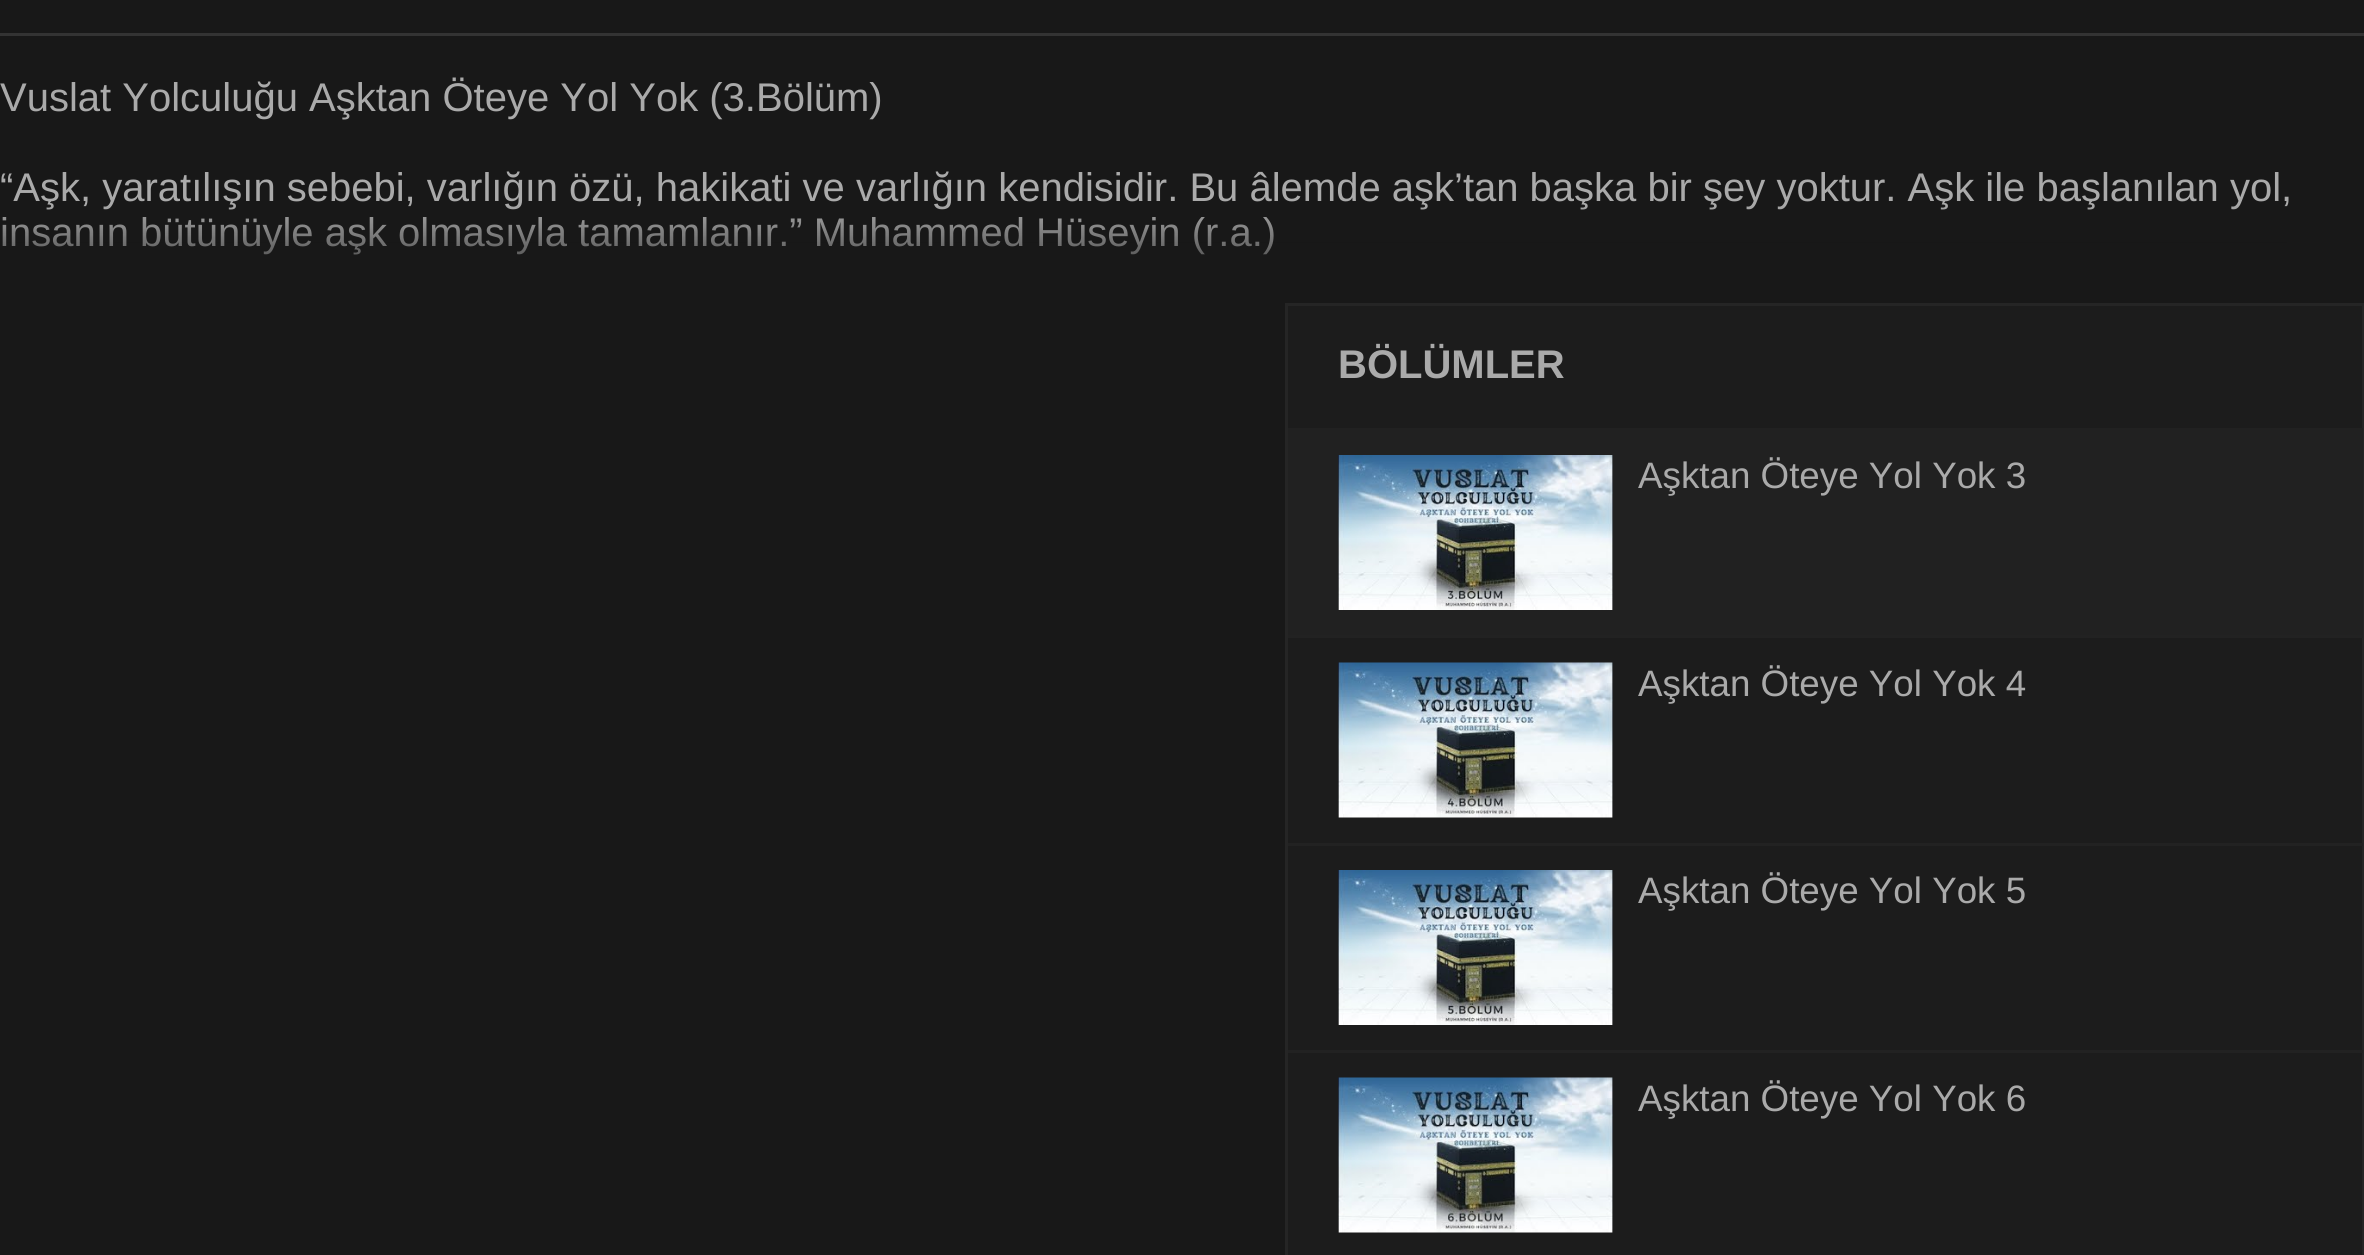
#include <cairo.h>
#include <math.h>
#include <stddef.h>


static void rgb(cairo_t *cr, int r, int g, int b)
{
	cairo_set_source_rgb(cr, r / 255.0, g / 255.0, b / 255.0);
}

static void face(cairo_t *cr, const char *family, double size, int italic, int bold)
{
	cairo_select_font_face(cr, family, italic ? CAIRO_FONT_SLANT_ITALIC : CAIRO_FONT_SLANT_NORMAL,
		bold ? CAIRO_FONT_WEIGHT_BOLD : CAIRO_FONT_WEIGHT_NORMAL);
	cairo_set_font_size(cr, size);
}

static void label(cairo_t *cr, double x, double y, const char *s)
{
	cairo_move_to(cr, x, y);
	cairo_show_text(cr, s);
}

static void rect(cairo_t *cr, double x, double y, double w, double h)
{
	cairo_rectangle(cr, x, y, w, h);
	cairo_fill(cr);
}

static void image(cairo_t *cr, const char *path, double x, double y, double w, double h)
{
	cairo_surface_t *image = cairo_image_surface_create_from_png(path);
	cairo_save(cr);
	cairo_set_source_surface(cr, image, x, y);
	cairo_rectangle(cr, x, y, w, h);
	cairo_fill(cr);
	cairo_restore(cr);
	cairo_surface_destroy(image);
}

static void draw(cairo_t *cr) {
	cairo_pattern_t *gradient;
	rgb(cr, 24, 24, 24);
	cairo_paint(cr);
	rgb(cr, 51, 51, 51);
	rect(cr, 0, 33, 2364, 3);
	face(cr, "Liberation Sans", 40, 0, 0);
	rgb(cr, 170, 170, 170);
	label(cr, 0, 111, "Vuslat Yolculuğu Aşktan Öteye Yol Yok (3.Bölüm)");
	label(cr, 0, 201, "“Aşk, yaratılışın sebebi, varlığın özü, hakikati ve varlığın kendisidir. Bu âlemde aşk’tan başka bir şey yoktur. Aşk ile başlanılan yol,");
	label(cr, 0, 246, "insanın bütünüyle aşk olmasıyla tamamlanır.” Muhammed Hüseyin (r.a.)");
	gradient = cairo_pattern_create_linear(1188, 303, 1188, 203);
	cairo_pattern_add_color_stop_rgba(gradient, 0, 0.094, 0.094, 0.094, 1);
	cairo_pattern_add_color_stop_rgba(gradient, 1, 0.094, 0.094, 0.094, 0);
	cairo_set_source(cr, gradient);
	cairo_pattern_destroy(gradient);
	rect(cr, 2, 205, 2285, 50);
	rgb(cr, 28, 28, 28);
	cairo_rectangle(cr, 1286.5, 304.5, 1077, 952);
	cairo_fill_preserve(cr);
	rgb(cr, 37, 37, 37);
	cairo_set_line_width(cr, 3);
	cairo_stroke(cr);
	face(cr, "Liberation Sans", 40, 0, 1);
	rgb(cr, 170, 170, 170);
	label(cr, 1338, 378, "BÖLÜMLER");
	rgb(cr, 33, 33, 33);
	rect(cr, 1288, 428, 1075, 207);
	image(cr, "image0.png", 1338, 455, 275, 155);
	face(cr, "Liberation Sans", 36.75, 0, 0);
	rgb(cr, 170, 170, 170);
	label(cr, 1638, 488, "Aşktan Öteye Yol Yok 3");
	rgb(cr, 34, 34, 34);
	rect(cr, 1288, 635, 1075, 3);
	image(cr, "image1.png", 1338, 662, 275, 156);
	rgb(cr, 170, 170, 170);
	label(cr, 1638, 696, "Aşktan Öteye Yol Yok 4");
	rgb(cr, 34, 34, 34);
	rect(cr, 1288, 843, 1075, 3);
	image(cr, "image2.png", 1338, 870, 275, 155);
	rgb(cr, 170, 170, 170);
	label(cr, 1638, 903, "Aşktan Öteye Yol Yok 5");
	rgb(cr, 34, 34, 34);
	rect(cr, 1288, 1050, 1075, 3);
	image(cr, "image3.png", 1338, 1077, 275, 156);
	rgb(cr, 170, 170, 170);
	label(cr, 1638, 1111, "Aşktan Öteye Yol Yok 6");
}

int main(void) {
	cairo_surface_t *surface = cairo_image_surface_create(CAIRO_FORMAT_RGB24, 2364, 1255);
	cairo_t *cr = cairo_create(surface);
	cairo_font_options_t *options = cairo_font_options_create();
	cairo_font_options_set_hint_metrics(options, CAIRO_HINT_METRICS_OFF);
	cairo_font_options_set_hint_style(options, CAIRO_HINT_STYLE_NONE);
	cairo_set_font_options(cr, options);
	cairo_set_miter_limit(cr, 4);
	draw(cr);
	cairo_surface_write_to_png(surface, "render.png");
	cairo_font_options_destroy(options);
	cairo_destroy(cr);
	cairo_surface_destroy(surface);
	return 0;
}
